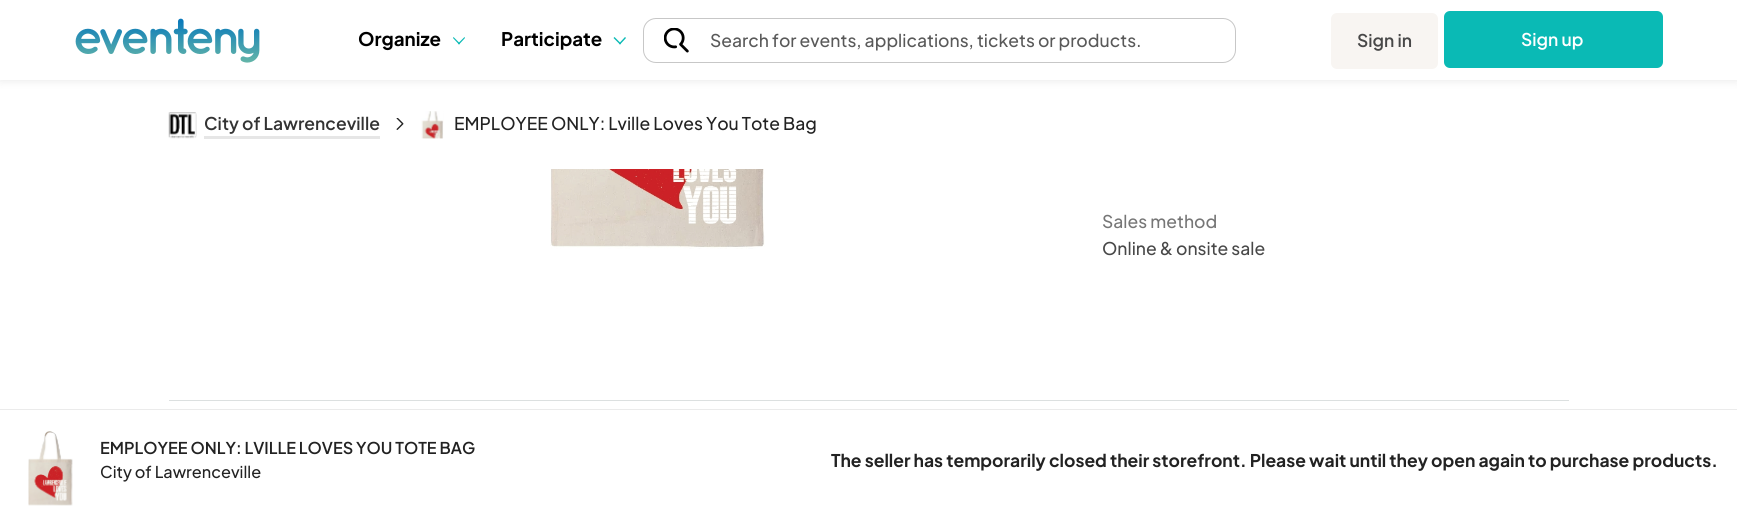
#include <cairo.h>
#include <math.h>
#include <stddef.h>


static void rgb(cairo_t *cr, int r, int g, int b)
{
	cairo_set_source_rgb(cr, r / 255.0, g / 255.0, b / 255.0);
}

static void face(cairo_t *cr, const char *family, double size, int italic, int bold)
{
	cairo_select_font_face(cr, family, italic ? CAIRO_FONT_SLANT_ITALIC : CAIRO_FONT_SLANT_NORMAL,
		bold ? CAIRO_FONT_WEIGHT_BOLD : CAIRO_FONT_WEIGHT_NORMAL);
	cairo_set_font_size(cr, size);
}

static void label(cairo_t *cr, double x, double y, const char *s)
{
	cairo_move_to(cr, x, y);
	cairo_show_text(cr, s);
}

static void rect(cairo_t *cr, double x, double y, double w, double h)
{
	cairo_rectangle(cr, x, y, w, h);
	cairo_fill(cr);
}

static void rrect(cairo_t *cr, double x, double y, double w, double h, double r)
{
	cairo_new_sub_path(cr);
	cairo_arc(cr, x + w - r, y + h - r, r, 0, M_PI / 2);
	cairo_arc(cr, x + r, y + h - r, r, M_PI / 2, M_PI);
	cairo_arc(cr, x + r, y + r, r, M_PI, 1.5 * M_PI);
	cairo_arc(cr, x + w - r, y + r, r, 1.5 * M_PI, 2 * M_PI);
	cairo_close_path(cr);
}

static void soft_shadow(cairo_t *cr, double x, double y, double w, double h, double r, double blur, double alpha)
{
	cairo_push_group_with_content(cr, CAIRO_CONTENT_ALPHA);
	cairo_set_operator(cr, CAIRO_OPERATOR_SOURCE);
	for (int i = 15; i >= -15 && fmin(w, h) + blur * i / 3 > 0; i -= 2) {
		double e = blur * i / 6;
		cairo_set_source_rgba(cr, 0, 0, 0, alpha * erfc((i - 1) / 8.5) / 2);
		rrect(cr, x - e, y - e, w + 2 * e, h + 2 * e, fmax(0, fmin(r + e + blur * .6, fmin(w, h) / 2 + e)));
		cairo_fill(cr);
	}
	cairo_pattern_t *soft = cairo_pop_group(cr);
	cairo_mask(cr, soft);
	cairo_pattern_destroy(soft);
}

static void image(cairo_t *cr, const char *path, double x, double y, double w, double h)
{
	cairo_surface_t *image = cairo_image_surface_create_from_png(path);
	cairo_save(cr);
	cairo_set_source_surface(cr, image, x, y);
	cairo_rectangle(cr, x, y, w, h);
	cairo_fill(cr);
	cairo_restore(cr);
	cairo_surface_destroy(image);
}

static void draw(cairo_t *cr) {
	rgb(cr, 255, 255, 255);
	cairo_paint(cr);
	rgb(cr, 0, 0, 0);
	soft_shadow(cr, 0, 0, 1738, 80, 0, 5, 0.1);
	rgb(cr, 255, 255, 255);
	rect(cr, 0, 0, 1737, 80);
	image(cr, "image0.png", 75, 18, 185, 45);
	face(cr, "Plus Jakarta Sans", 18.75, 0, 1);
	rgb(cr, 0, 0, 0);
	label(cr, 358, 46, "Organize");
	rgb(cr, 10, 186, 181);
	cairo_new_path(cr);
	cairo_move_to(cr, 464.5, 37);
	cairo_line_to(cr, 465, 38);
	cairo_line_to(cr, 459, 44.5);
	cairo_line_to(cr, 458, 43.5);
	cairo_close_path(cr);
	cairo_fill(cr);
	cairo_new_path(cr);
	cairo_move_to(cr, 453.5, 37);
	cairo_line_to(cr, 460, 43.5);
	cairo_line_to(cr, 459, 44.5);
	cairo_line_to(cr, 453, 38);
	cairo_close_path(cr);
	cairo_fill(cr);
	rgb(cr, 0, 0, 0);
	label(cr, 501, 46, "Participate");
	rgb(cr, 10, 186, 181);
	cairo_new_path(cr);
	cairo_move_to(cr, 625, 37);
	cairo_line_to(cr, 626, 38);
	cairo_line_to(cr, 620, 44.5);
	cairo_line_to(cr, 619, 43.5);
	cairo_close_path(cr);
	cairo_fill(cr);
	cairo_new_path(cr);
	cairo_move_to(cr, 614.5, 37);
	cairo_line_to(cr, 621, 43.5);
	cairo_line_to(cr, 620, 44.5);
	cairo_line_to(cr, 613.5, 38);
	cairo_close_path(cr);
	cairo_fill(cr);
	rrect(cr, 643.5, 18.5, 592, 44, 12.5);
	rgb(cr, 199, 199, 199);
	cairo_set_line_width(cr, 1);
	cairo_stroke(cr);
	image(cr, "image1.png", 664, 28, 25, 25);
	face(cr, "Plus Jakarta Sans Medium", 17.5, 0, 0);
	rgb(cr, 89, 89, 89);
	label(cr, 710, 47, "Search for events, applications, tickets or products.");
	rgb(cr, 248, 245, 242);
	rrect(cr, 1331, 13, 107, 56, 6);
	cairo_fill(cr);
	face(cr, "Plus Jakarta Sans SemiBold", 17.5, 0, 0);
	rgb(cr, 72, 72, 72);
	label(cr, 1357, 47, "Sign in");
	rgb(cr, 10, 186, 181);
	rrect(cr, 1444, 11, 219, 57, 6);
	cairo_fill(cr);
	rgb(cr, 255, 255, 255);
	label(cr, 1521, 46, "Sign up");
	image(cr, "image2.png", 168, 112, 29, 27);
	rgb(cr, 51, 51, 51);
	label(cr, 204, 130, "City of Lawrenceville");
	rgb(cr, 230, 230, 230);
	rect(cr, 204, 136, 176, 3);
	image(cr, "image3.png", 396, 118, 8, 12);
	image(cr, "image4.png", 421, 111, 23, 28);
	face(cr, "Plus Jakarta Sans Medium", 17.5, 0, 0);
	rgb(cr, 34, 34, 34);
	label(cr, 454, 130, "EMPLOYEE ONLY: Lville Loves You Tote Bag");
	image(cr, "image5.png", 550, 169, 215, 80);
	rgb(cr, 118, 118, 118);
	label(cr, 1102, 228, "Sales method");
	rgb(cr, 72, 72, 72);
	label(cr, 1102, 255, "Online & onsite sale");
	rgb(cr, 220, 224, 224);
	rect(cr, 169, 400, 1400, 1);
	rgb(cr, 235, 235, 235);
	rect(cr, 0, 409, 1737, 1);
	image(cr, "image6.png", 28, 431, 45, 75);
	face(cr, "Plus Jakarta Sans SemiBold", 16.25, 0, 0);
	rgb(cr, 34, 34, 34);
	label(cr, 100, 454, "EMPLOYEE ONLY: LVILLE LOVES YOU TOTE BAG");
	face(cr, "Plus Jakarta Sans Medium", 16.25, 0, 0);
	label(cr, 100, 478, "City of Lawrenceville");
	face(cr, "Plus Jakarta Sans", 17.5, 0, 1);
	label(cr, 831, 467, "The seller has temporarily closed their storefront. Please wait until they open again to purchase products.");
}

int main(void) {
	cairo_surface_t *surface = cairo_image_surface_create(CAIRO_FORMAT_RGB24, 1737, 510);
	cairo_t *cr = cairo_create(surface);
	cairo_font_options_t *options = cairo_font_options_create();
	cairo_font_options_set_hint_metrics(options, CAIRO_HINT_METRICS_OFF);
	cairo_font_options_set_hint_style(options, CAIRO_HINT_STYLE_NONE);
	cairo_set_font_options(cr, options);
	cairo_set_miter_limit(cr, 4);
	draw(cr);
	cairo_surface_write_to_png(surface, "render.png");
	cairo_font_options_destroy(options);
	cairo_destroy(cr);
	cairo_surface_destroy(surface);
	return 0;
}
